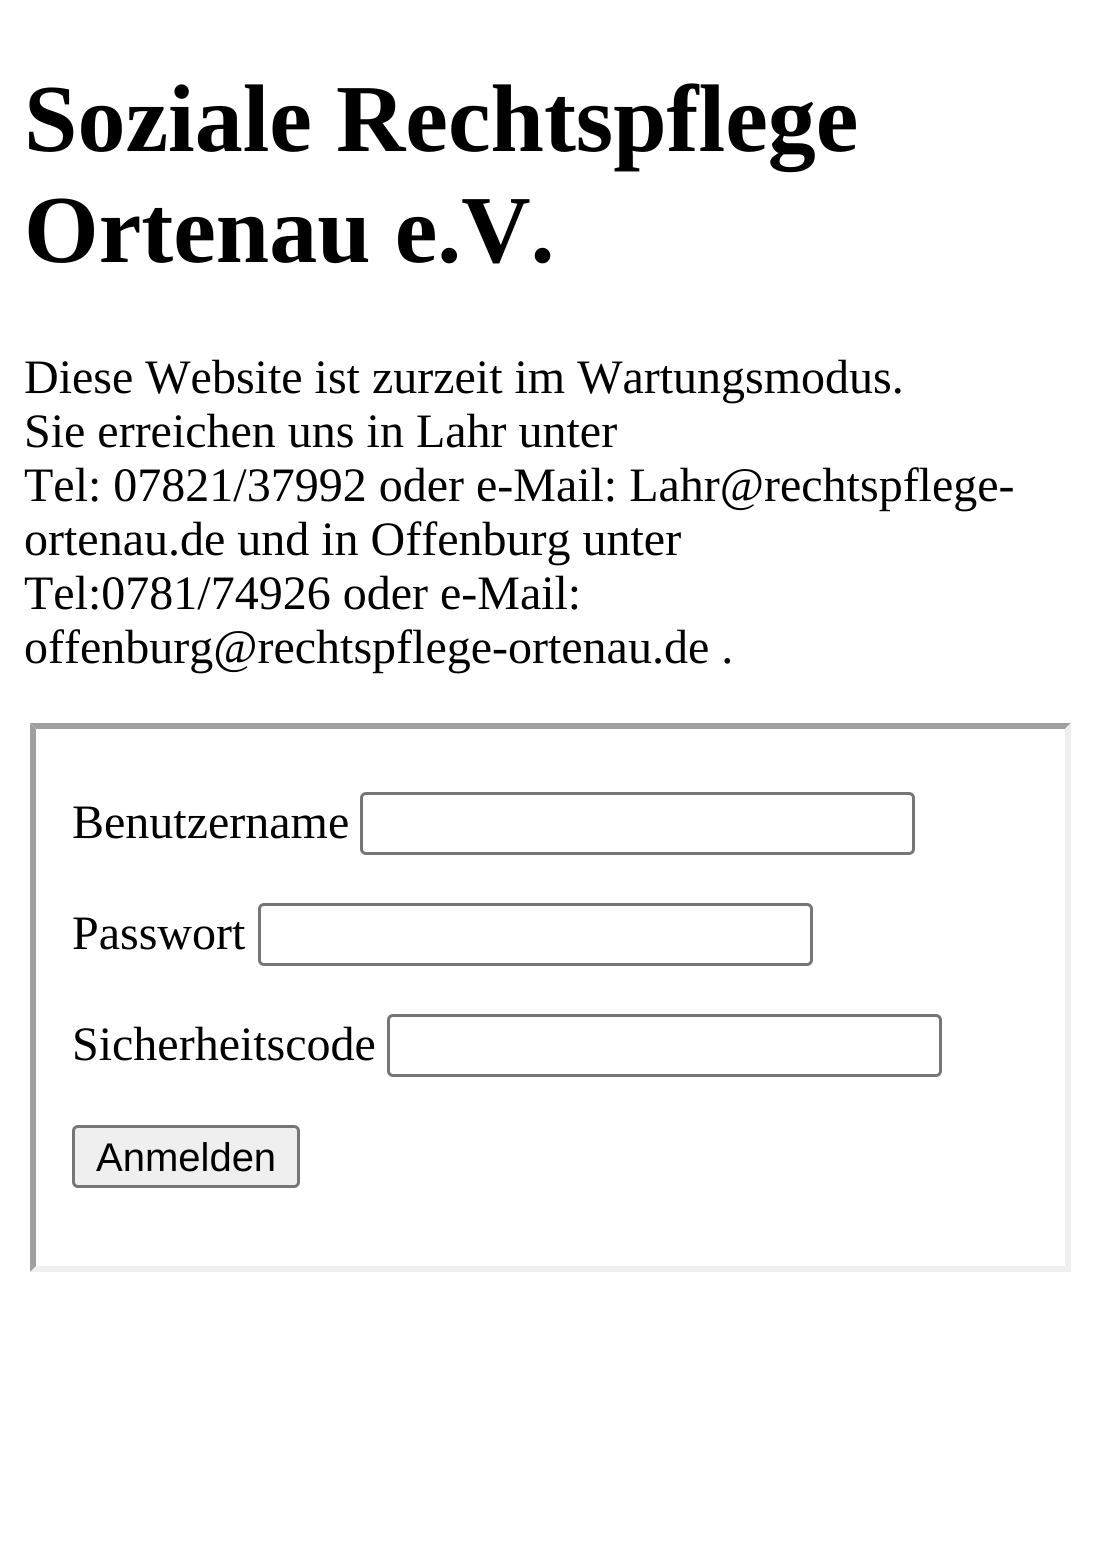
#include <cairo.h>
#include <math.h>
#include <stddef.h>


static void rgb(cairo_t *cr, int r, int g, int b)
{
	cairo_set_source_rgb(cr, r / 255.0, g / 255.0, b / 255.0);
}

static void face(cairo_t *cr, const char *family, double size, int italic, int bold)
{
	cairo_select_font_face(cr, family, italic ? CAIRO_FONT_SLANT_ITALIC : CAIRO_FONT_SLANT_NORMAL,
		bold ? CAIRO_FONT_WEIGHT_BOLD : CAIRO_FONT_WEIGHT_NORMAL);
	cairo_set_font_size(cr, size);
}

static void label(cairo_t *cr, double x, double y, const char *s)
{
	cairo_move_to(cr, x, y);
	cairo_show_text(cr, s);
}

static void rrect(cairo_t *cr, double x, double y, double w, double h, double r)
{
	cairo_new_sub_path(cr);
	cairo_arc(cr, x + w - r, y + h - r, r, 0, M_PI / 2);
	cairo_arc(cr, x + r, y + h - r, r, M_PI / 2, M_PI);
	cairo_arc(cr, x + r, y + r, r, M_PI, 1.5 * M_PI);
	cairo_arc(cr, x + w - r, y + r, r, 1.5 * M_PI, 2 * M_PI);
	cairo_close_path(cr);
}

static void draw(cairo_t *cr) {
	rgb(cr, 255, 255, 255);
	cairo_paint(cr);
	face(cr, "Liberation Serif", 96, 0, 1);
	rgb(cr, 0, 0, 0);
	label(cr, 24, 151, "Soziale Rechtspflege");
	label(cr, 24, 262, "Ortenau e.V.");
	face(cr, "Liberation Serif", 48, 0, 0);
	label(cr, 24, 393, "Diese Website ist zurzeit im Wartungsmodus.");
	label(cr, 24, 447, "Sie erreichen uns in Lahr unter");
	label(cr, 24, 501, "Tel: 07821/37992 oder e-Mail: Lahr@rechtspflege-");
	label(cr, 24, 555, "ortenau.de und in Offenburg unter");
	label(cr, 24, 609, "Tel:0781/74926 oder e-Mail:");
	label(cr, 24, 663, "offenburg@rechtspflege-ortenau.de .");
	rgb(cr, 159, 159, 159);
	cairo_new_path(cr);
	cairo_move_to(cr, 30, 723);
	cairo_line_to(cr, 1071, 723);
	cairo_line_to(cr, 1065, 729);
	cairo_line_to(cr, 36, 729);
	cairo_close_path(cr);
	cairo_fill(cr);
	rgb(cr, 239, 239, 239);
	cairo_new_path(cr);
	cairo_move_to(cr, 1071, 723);
	cairo_line_to(cr, 1071, 1272);
	cairo_line_to(cr, 1065, 1266);
	cairo_line_to(cr, 1065, 729);
	cairo_close_path(cr);
	cairo_fill(cr);
	cairo_new_path(cr);
	cairo_move_to(cr, 1071, 1272);
	cairo_line_to(cr, 30, 1272);
	cairo_line_to(cr, 36, 1266);
	cairo_line_to(cr, 1065, 1266);
	cairo_close_path(cr);
	cairo_fill(cr);
	rgb(cr, 159, 159, 159);
	cairo_new_path(cr);
	cairo_move_to(cr, 30, 1272);
	cairo_line_to(cr, 30, 723);
	cairo_line_to(cr, 36, 729);
	cairo_line_to(cr, 36, 1266);
	cairo_close_path(cr);
	cairo_fill(cr);
	rgb(cr, 0, 0, 0);
	label(cr, 72, 838, "Benutzername");
	rrect(cr, 361.5, 793.5, 552, 60, 4.5);
	rgb(cr, 118, 118, 118);
	cairo_set_line_width(cr, 3);
	cairo_stroke(cr);
	rgb(cr, 0, 0, 0);
	label(cr, 72, 949, "Passwort");
	rrect(cr, 259.5, 904.5, 552, 60, 4.5);
	rgb(cr, 118, 118, 118);
	cairo_stroke(cr);
	rgb(cr, 0, 0, 0);
	label(cr, 72, 1060, "Sicherheitscode");
	rrect(cr, 388.5, 1015.5, 552, 60, 4.5);
	rgb(cr, 118, 118, 118);
	cairo_stroke(cr);
	rgb(cr, 239, 239, 239);
	rrect(cr, 73.5, 1126.5, 225, 60, 4.5);
	cairo_fill_preserve(cr);
	rgb(cr, 118, 118, 118);
	cairo_stroke(cr);
	face(cr, "Liberation Sans", 40, 0, 0);
	rgb(cr, 0, 0, 0);
	label(cr, 96, 1171, "Anmelden");
}

int main(void) {
	cairo_surface_t *surface = cairo_image_surface_create(CAIRO_FORMAT_RGB24, 1101, 1549);
	cairo_t *cr = cairo_create(surface);
	cairo_font_options_t *options = cairo_font_options_create();
	cairo_font_options_set_hint_metrics(options, CAIRO_HINT_METRICS_OFF);
	cairo_font_options_set_hint_style(options, CAIRO_HINT_STYLE_NONE);
	cairo_set_font_options(cr, options);
	cairo_set_miter_limit(cr, 4);
	draw(cr);
	cairo_surface_write_to_png(surface, "render.png");
	cairo_font_options_destroy(options);
	cairo_destroy(cr);
	cairo_surface_destroy(surface);
	return 0;
}
